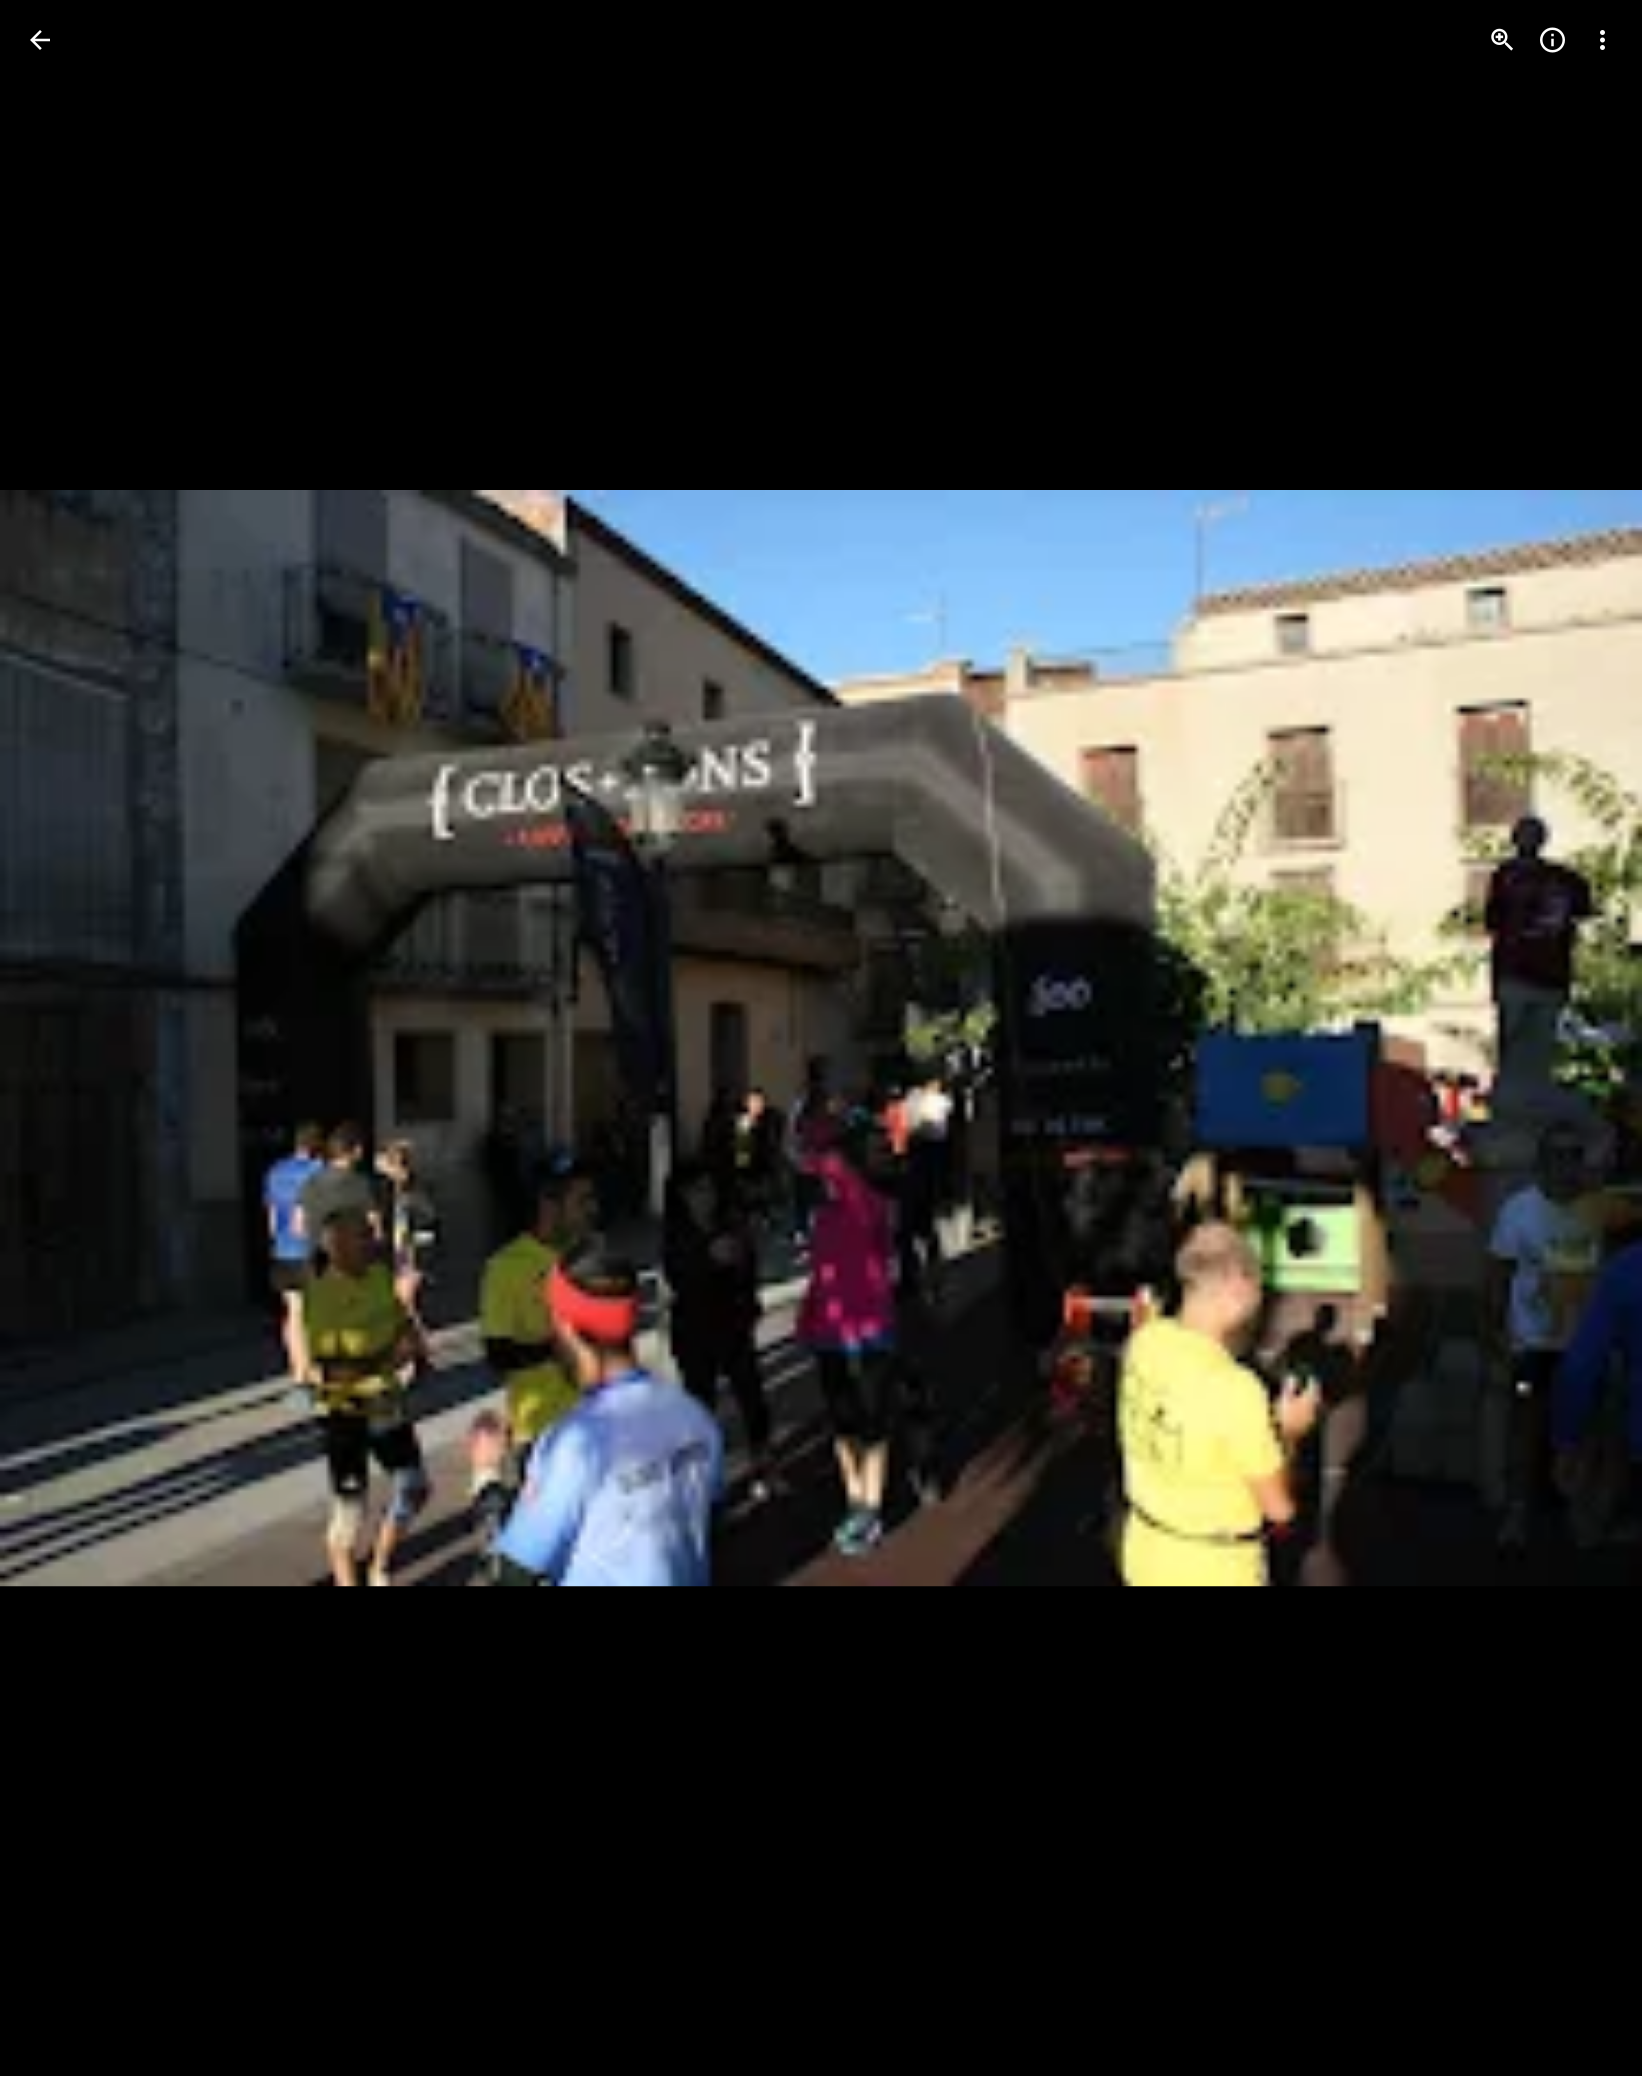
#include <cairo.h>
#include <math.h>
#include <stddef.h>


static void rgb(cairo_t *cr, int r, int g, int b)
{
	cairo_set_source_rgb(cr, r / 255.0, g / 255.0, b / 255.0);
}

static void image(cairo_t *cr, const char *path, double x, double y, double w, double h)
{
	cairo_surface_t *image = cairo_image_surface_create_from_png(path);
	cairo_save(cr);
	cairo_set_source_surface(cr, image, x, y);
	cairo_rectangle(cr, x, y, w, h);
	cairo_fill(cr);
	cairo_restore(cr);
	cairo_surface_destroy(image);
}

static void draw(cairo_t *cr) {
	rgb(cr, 0, 0, 0);
	cairo_paint(cr);
	image(cr, "image0.png", 30, 30, 20, 20);
	image(cr, "image1.png", 1491, 28, 22, 23);
	image(cr, "image2.png", 1540, 27, 25, 26);
	image(cr, "image3.png", 1600, 30, 5, 20);
	image(cr, "image4.png", 0, 490, 1642, 1097);
}

int main(void) {
	cairo_surface_t *surface = cairo_image_surface_create(CAIRO_FORMAT_RGB24, 1642, 2076);
	cairo_t *cr = cairo_create(surface);
	cairo_font_options_t *options = cairo_font_options_create();
	cairo_font_options_set_hint_metrics(options, CAIRO_HINT_METRICS_OFF);
	cairo_font_options_set_hint_style(options, CAIRO_HINT_STYLE_NONE);
	cairo_set_font_options(cr, options);
	cairo_set_miter_limit(cr, 4);
	draw(cr);
	cairo_surface_write_to_png(surface, "render.png");
	cairo_font_options_destroy(options);
	cairo_destroy(cr);
	cairo_surface_destroy(surface);
	return 0;
}
